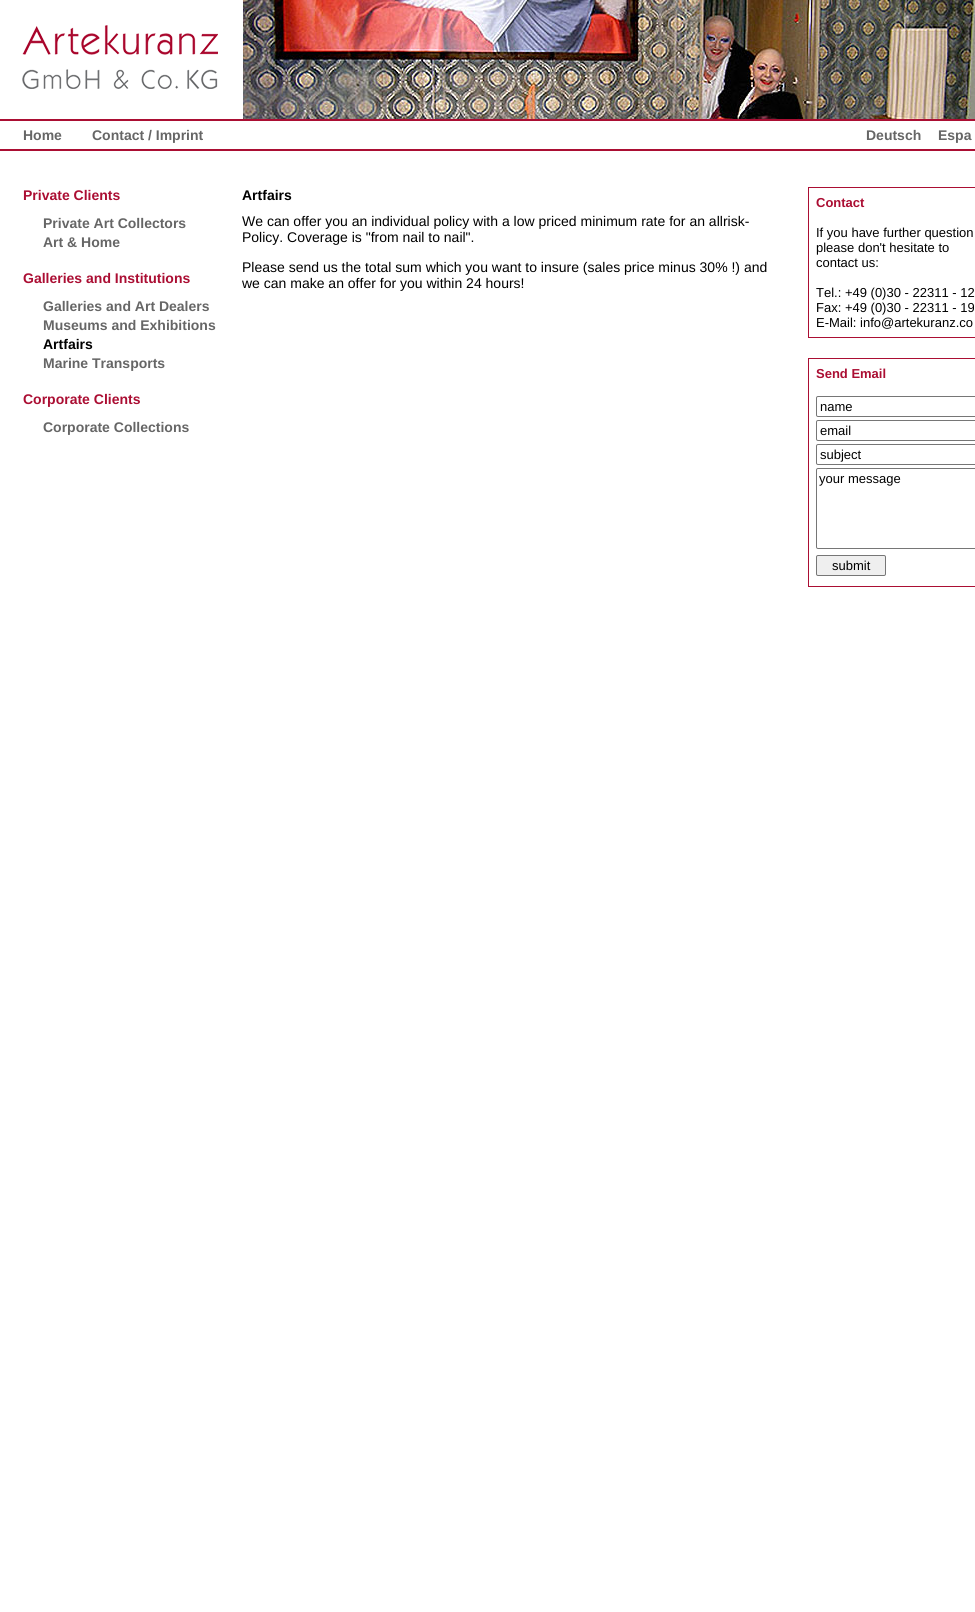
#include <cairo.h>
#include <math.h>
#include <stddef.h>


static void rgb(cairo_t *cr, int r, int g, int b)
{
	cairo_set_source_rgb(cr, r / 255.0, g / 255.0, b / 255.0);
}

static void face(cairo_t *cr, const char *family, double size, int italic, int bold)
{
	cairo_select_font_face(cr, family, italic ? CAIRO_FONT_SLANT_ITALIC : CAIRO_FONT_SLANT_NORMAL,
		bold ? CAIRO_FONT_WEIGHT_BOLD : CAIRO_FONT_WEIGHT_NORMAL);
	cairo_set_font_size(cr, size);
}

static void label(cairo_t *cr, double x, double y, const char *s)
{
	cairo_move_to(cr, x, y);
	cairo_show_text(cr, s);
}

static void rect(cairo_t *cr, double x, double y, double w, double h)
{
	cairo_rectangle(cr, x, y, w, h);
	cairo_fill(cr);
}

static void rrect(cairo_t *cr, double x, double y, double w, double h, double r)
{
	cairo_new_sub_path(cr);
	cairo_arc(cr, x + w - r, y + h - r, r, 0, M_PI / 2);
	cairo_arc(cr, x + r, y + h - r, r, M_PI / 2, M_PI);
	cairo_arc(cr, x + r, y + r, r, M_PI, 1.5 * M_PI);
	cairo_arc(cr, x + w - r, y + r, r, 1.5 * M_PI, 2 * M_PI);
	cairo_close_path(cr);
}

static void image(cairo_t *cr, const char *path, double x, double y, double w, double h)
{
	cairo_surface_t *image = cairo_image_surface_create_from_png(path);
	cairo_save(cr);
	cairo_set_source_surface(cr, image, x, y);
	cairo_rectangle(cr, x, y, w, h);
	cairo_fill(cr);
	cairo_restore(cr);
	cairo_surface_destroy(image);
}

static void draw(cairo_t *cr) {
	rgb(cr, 255, 255, 255);
	cairo_paint(cr);
	image(cr, "image0.png", 22, 25, 196, 64);
	image(cr, "image1.png", 243, 0, 732, 119);
	rgb(cr, 171, 14, 51);
	rect(cr, 0, 119, 975, 2);
	rect(cr, 0, 149, 975, 2);
	face(cr, "Liberation Sans", 14, 0, 1);
	rgb(cr, 102, 102, 102);
	label(cr, 23, 140, "Home");
	label(cr, 92, 140, "Contact / Imprint");
	label(cr, 866, 140, "Deutsch");
	label(cr, 938, 140, "Espa");
	rgb(cr, 171, 14, 51);
	label(cr, 23, 200, "Private Clients");
	rgb(cr, 102, 102, 102);
	label(cr, 43, 228, "Private Art Collectors");
	label(cr, 43, 247, "Art & Home");
	rgb(cr, 171, 14, 51);
	label(cr, 23, 283, "Galleries and Institutions");
	rgb(cr, 102, 102, 102);
	label(cr, 43, 311, "Galleries and Art Dealers");
	label(cr, 43, 330, "Museums and Exhibitions");
	rgb(cr, 0, 0, 0);
	label(cr, 43, 349, "Artfairs");
	rgb(cr, 102, 102, 102);
	label(cr, 43, 368, "Marine Transports");
	rgb(cr, 171, 14, 51);
	label(cr, 23, 404, "Corporate Clients");
	rgb(cr, 102, 102, 102);
	label(cr, 43, 432, "Corporate Collections");
	rgb(cr, 0, 0, 0);
	label(cr, 242, 200, "Artfairs");
	face(cr, "Liberation Sans", 14, 0, 0);
	label(cr, 242, 226, "We can offer you an individual policy with a low priced minimum rate for an allrisk-");
	label(cr, 242, 242, "Policy. Coverage is \"from nail to nail\".");
	label(cr, 242, 272, "Please send us the total sum which you want to insure (sales price minus 30% !) and");
	label(cr, 242, 288, "we can make an offer for you within 24 hours!");
	cairo_rectangle(cr, 808.5, 187.5, 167, 150);
	rgb(cr, 171, 14, 51);
	cairo_set_line_width(cr, 1);
	cairo_stroke(cr);
	face(cr, "Liberation Sans", 13, 0, 1);
	label(cr, 816, 207, "Contact");
	face(cr, "Liberation Sans", 13, 0, 0);
	rgb(cr, 0, 0, 0);
	label(cr, 816, 237, "If you have further question");
	label(cr, 816, 252, "please don't hesitate to");
	label(cr, 816, 267, "contact us:");
	label(cr, 816, 297, "Tel.: +49 (0)30 - 22311 - 12");
	label(cr, 816, 312, "Fax: +49 (0)30 - 22311 - 19");
	label(cr, 816, 327, "E-Mail: info@artekuranz.co");
	cairo_rectangle(cr, 808.5, 358.5, 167, 228);
	rgb(cr, 171, 14, 51);
	cairo_stroke(cr);
	face(cr, "Liberation Sans", 13, 0, 1);
	label(cr, 816, 378, "Send Email");
	rrect(cr, 816.5, 396.5, 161, 20, 1.5);
	rgb(cr, 118, 118, 118);
	cairo_stroke(cr);
	face(cr, "Liberation Sans", 13, 0, 0);
	rgb(cr, 0, 0, 0);
	label(cr, 820, 411, "name");
	rrect(cr, 816.5, 420.5, 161, 20, 1.5);
	rgb(cr, 118, 118, 118);
	cairo_stroke(cr);
	rgb(cr, 0, 0, 0);
	label(cr, 820, 435, "email");
	rrect(cr, 816.5, 444.5, 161, 20, 1.5);
	rgb(cr, 118, 118, 118);
	cairo_stroke(cr);
	rgb(cr, 0, 0, 0);
	label(cr, 820, 459, "subject");
	rrect(cr, 816.5, 468.5, 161, 80, 1.5);
	rgb(cr, 118, 118, 118);
	cairo_stroke(cr);
	rgb(cr, 0, 0, 0);
	label(cr, 819, 483, "your message");
	rgb(cr, 239, 239, 239);
	rrect(cr, 816.5, 555.5, 69, 20, 1.5);
	cairo_fill_preserve(cr);
	rgb(cr, 118, 118, 118);
	cairo_stroke(cr);
	rgb(cr, 0, 0, 0);
	label(cr, 832, 570, "submit");
}

int main(void) {
	cairo_surface_t *surface = cairo_image_surface_create(CAIRO_FORMAT_RGB24, 975, 1612);
	cairo_t *cr = cairo_create(surface);
	cairo_font_options_t *options = cairo_font_options_create();
	cairo_font_options_set_hint_metrics(options, CAIRO_HINT_METRICS_OFF);
	cairo_font_options_set_hint_style(options, CAIRO_HINT_STYLE_NONE);
	cairo_set_font_options(cr, options);
	cairo_set_miter_limit(cr, 4);
	draw(cr);
	cairo_surface_write_to_png(surface, "render.png");
	cairo_font_options_destroy(options);
	cairo_destroy(cr);
	cairo_surface_destroy(surface);
	return 0;
}
